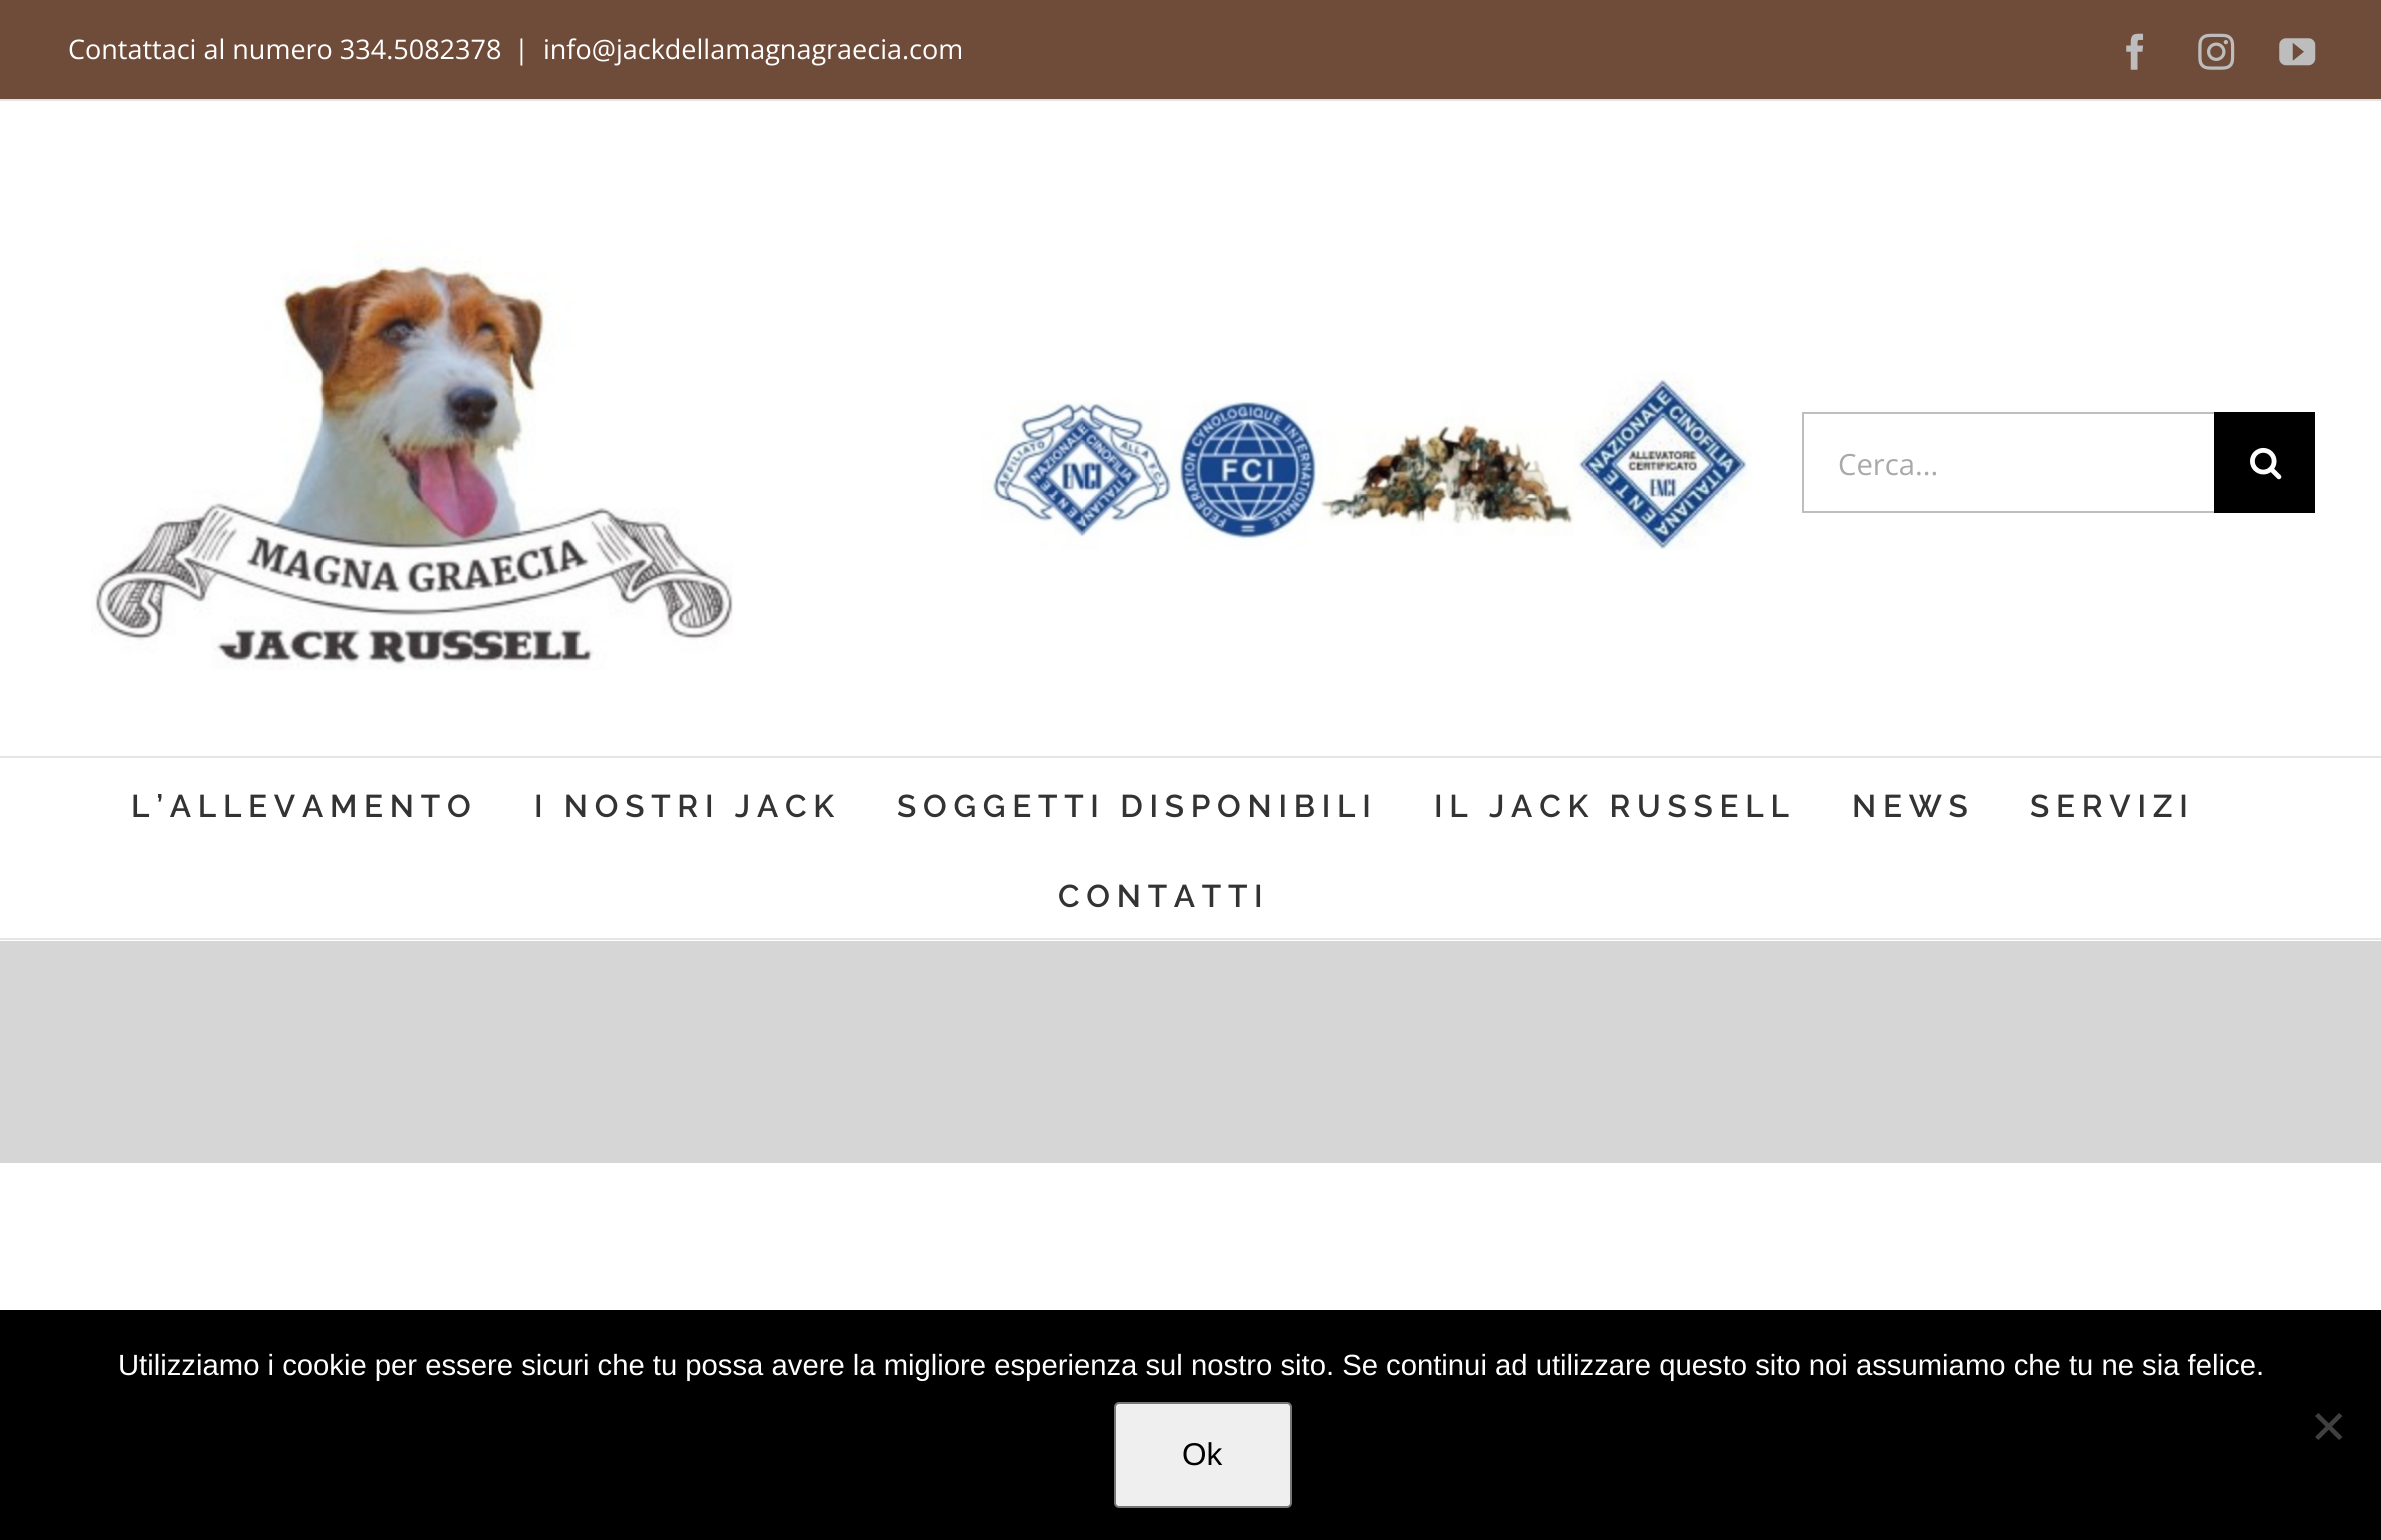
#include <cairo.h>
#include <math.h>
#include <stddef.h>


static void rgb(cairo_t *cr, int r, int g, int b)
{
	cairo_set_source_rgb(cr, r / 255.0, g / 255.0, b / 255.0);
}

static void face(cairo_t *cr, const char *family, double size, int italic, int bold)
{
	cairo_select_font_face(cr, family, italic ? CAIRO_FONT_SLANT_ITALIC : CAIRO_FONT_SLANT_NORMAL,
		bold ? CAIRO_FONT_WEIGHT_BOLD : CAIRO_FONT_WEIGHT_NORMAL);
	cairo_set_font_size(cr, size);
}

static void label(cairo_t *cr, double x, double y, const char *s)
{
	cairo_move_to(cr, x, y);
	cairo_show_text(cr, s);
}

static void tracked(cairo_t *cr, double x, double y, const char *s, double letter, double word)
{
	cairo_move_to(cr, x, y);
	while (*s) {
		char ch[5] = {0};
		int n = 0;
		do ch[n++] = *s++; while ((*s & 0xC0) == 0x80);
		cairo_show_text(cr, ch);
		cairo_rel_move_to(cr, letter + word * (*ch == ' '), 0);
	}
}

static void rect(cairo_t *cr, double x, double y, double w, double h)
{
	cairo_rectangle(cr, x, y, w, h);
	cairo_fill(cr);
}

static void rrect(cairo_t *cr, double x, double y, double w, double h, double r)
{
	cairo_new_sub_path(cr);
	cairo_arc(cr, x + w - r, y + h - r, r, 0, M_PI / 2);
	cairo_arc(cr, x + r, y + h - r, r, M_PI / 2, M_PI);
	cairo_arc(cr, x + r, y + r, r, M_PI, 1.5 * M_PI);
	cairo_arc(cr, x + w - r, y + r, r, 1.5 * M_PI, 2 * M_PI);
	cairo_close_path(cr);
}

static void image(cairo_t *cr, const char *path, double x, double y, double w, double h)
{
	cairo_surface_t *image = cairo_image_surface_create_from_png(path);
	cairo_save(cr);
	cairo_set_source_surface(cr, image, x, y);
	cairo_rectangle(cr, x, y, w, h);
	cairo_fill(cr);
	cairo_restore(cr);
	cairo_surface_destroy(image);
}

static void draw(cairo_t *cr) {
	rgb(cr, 215, 214, 214);
	cairo_paint(cr);
	rgb(cr, 111, 76, 57);
	rect(cr, 0, 0, 2381, 99);
	rgb(cr, 229, 229, 229);
	rect(cr, 0, 99, 2381, 2);
	face(cr, "Open Sans", 27, 0, 0);
	rgb(cr, 255, 255, 255);
	label(cr, 68, 59, "Contattaci al numero 334.5082378");
	label(cr, 514, 59, "|");
	label(cr, 543, 59, "info@jackdellamagnagraecia.com");
	image(cr, "image0.png", 2126, 33, 18, 37);
	image(cr, "image1.png", 2198, 33, 37, 37);
	image(cr, "image2.png", 2279, 38, 37, 28);
	rect(cr, 0, 101, 2381, 655);
	rgb(cr, 229, 229, 229);
	rect(cr, 0, 756, 2381, 2);
	image(cr, "image3.png", 91, 239, 642, 431);
	image(cr, "image4.png", 982, 371, 770, 179);
	rgb(cr, 191, 189, 189);
	rect(cr, 1802, 412, 412, 2);
	rect(cr, 1802, 511, 412, 2);
	rect(cr, 1802, 412, 2, 101);
	face(cr, "Open Sans", 29.25, 0, 0);
	rgb(cr, 170, 169, 169);
	label(cr, 1838, 475, "Cerca...");
	rgb(cr, 0, 0, 0);
	rect(cr, 2214, 412, 101, 101);
	image(cr, "image5.png", 2250, 447, 32, 33);
	rgb(cr, 255, 255, 255);
	rect(cr, 0, 758, 2381, 183);
	rgb(cr, 229, 229, 229);
	rect(cr, 0, 938, 2381, 2);
	face(cr, "Raleway SemiBold", 31.5, 0, 0);
	rgb(cr, 51, 51, 51);
	tracked(cr, 131, 817, "L’ALLEVAMENTO", 6.75, 0);
	tracked(cr, 534, 817, "I NOSTRI JACK", 6.75, 0);
	tracked(cr, 897, 817, "SOGGETTI DISPONIBILI", 6.75, 0);
	tracked(cr, 1434, 817, "IL JACK RUSSELL", 6.75, 0);
	tracked(cr, 1852, 817, "NEWS", 6.75, 0);
	tracked(cr, 2030, 817, "SERVIZI", 6.75, 0);
	tracked(cr, 1058, 907, "CONTATTI", 6.75, 0);
	rgb(cr, 255, 255, 255);
	rect(cr, 0, 1163, 2381, 147);
	rgb(cr, 0, 0, 0);
	rect(cr, 0, 1310, 2381, 230);
	face(cr, "Liberation Sans", 29.25, 0, 0);
	rgb(cr, 255, 255, 255);
	label(cr, 118, 1375, "Utilizziamo i cookie per essere sicuri che tu possa avere la migliore esperienza sul nostro sito. Se continui ad utilizzare questo sito noi assumiamo che tu ne sia felice.");
	rgb(cr, 64, 64, 64);
	cairo_new_path(cr);
	cairo_move_to(cr, 2339, 1413);
	cairo_line_to(cr, 2342.5, 1416);
	cairo_line_to(cr, 2318.5, 1440);
	cairo_line_to(cr, 2315, 1437);
	cairo_close_path(cr);
	cairo_fill(cr);
	cairo_new_path(cr);
	cairo_move_to(cr, 2315, 1416);
	cairo_line_to(cr, 2318.5, 1413);
	cairo_line_to(cr, 2342.5, 1437);
	cairo_line_to(cr, 2339, 1440);
	cairo_close_path(cr);
	cairo_fill(cr);
	rgb(cr, 239, 239, 239);
	rrect(cr, 1115, 1403, 176, 104, 4);
	cairo_fill_preserve(cr);
	rgb(cr, 118, 118, 118);
	cairo_stroke(cr);
	face(cr, "Liberation Sans", 31.5, 0, 0);
	rgb(cr, 0, 0, 0);
	label(cr, 1182, 1465, "Ok");
}

int main(void) {
	cairo_surface_t *surface = cairo_image_surface_create(CAIRO_FORMAT_RGB24, 2381, 1540);
	cairo_t *cr = cairo_create(surface);
	cairo_font_options_t *options = cairo_font_options_create();
	cairo_font_options_set_hint_metrics(options, CAIRO_HINT_METRICS_OFF);
	cairo_font_options_set_hint_style(options, CAIRO_HINT_STYLE_NONE);
	cairo_set_font_options(cr, options);
	cairo_set_miter_limit(cr, 4);
	draw(cr);
	cairo_surface_write_to_png(surface, "render.png");
	cairo_font_options_destroy(options);
	cairo_destroy(cr);
	cairo_surface_destroy(surface);
	return 0;
}
